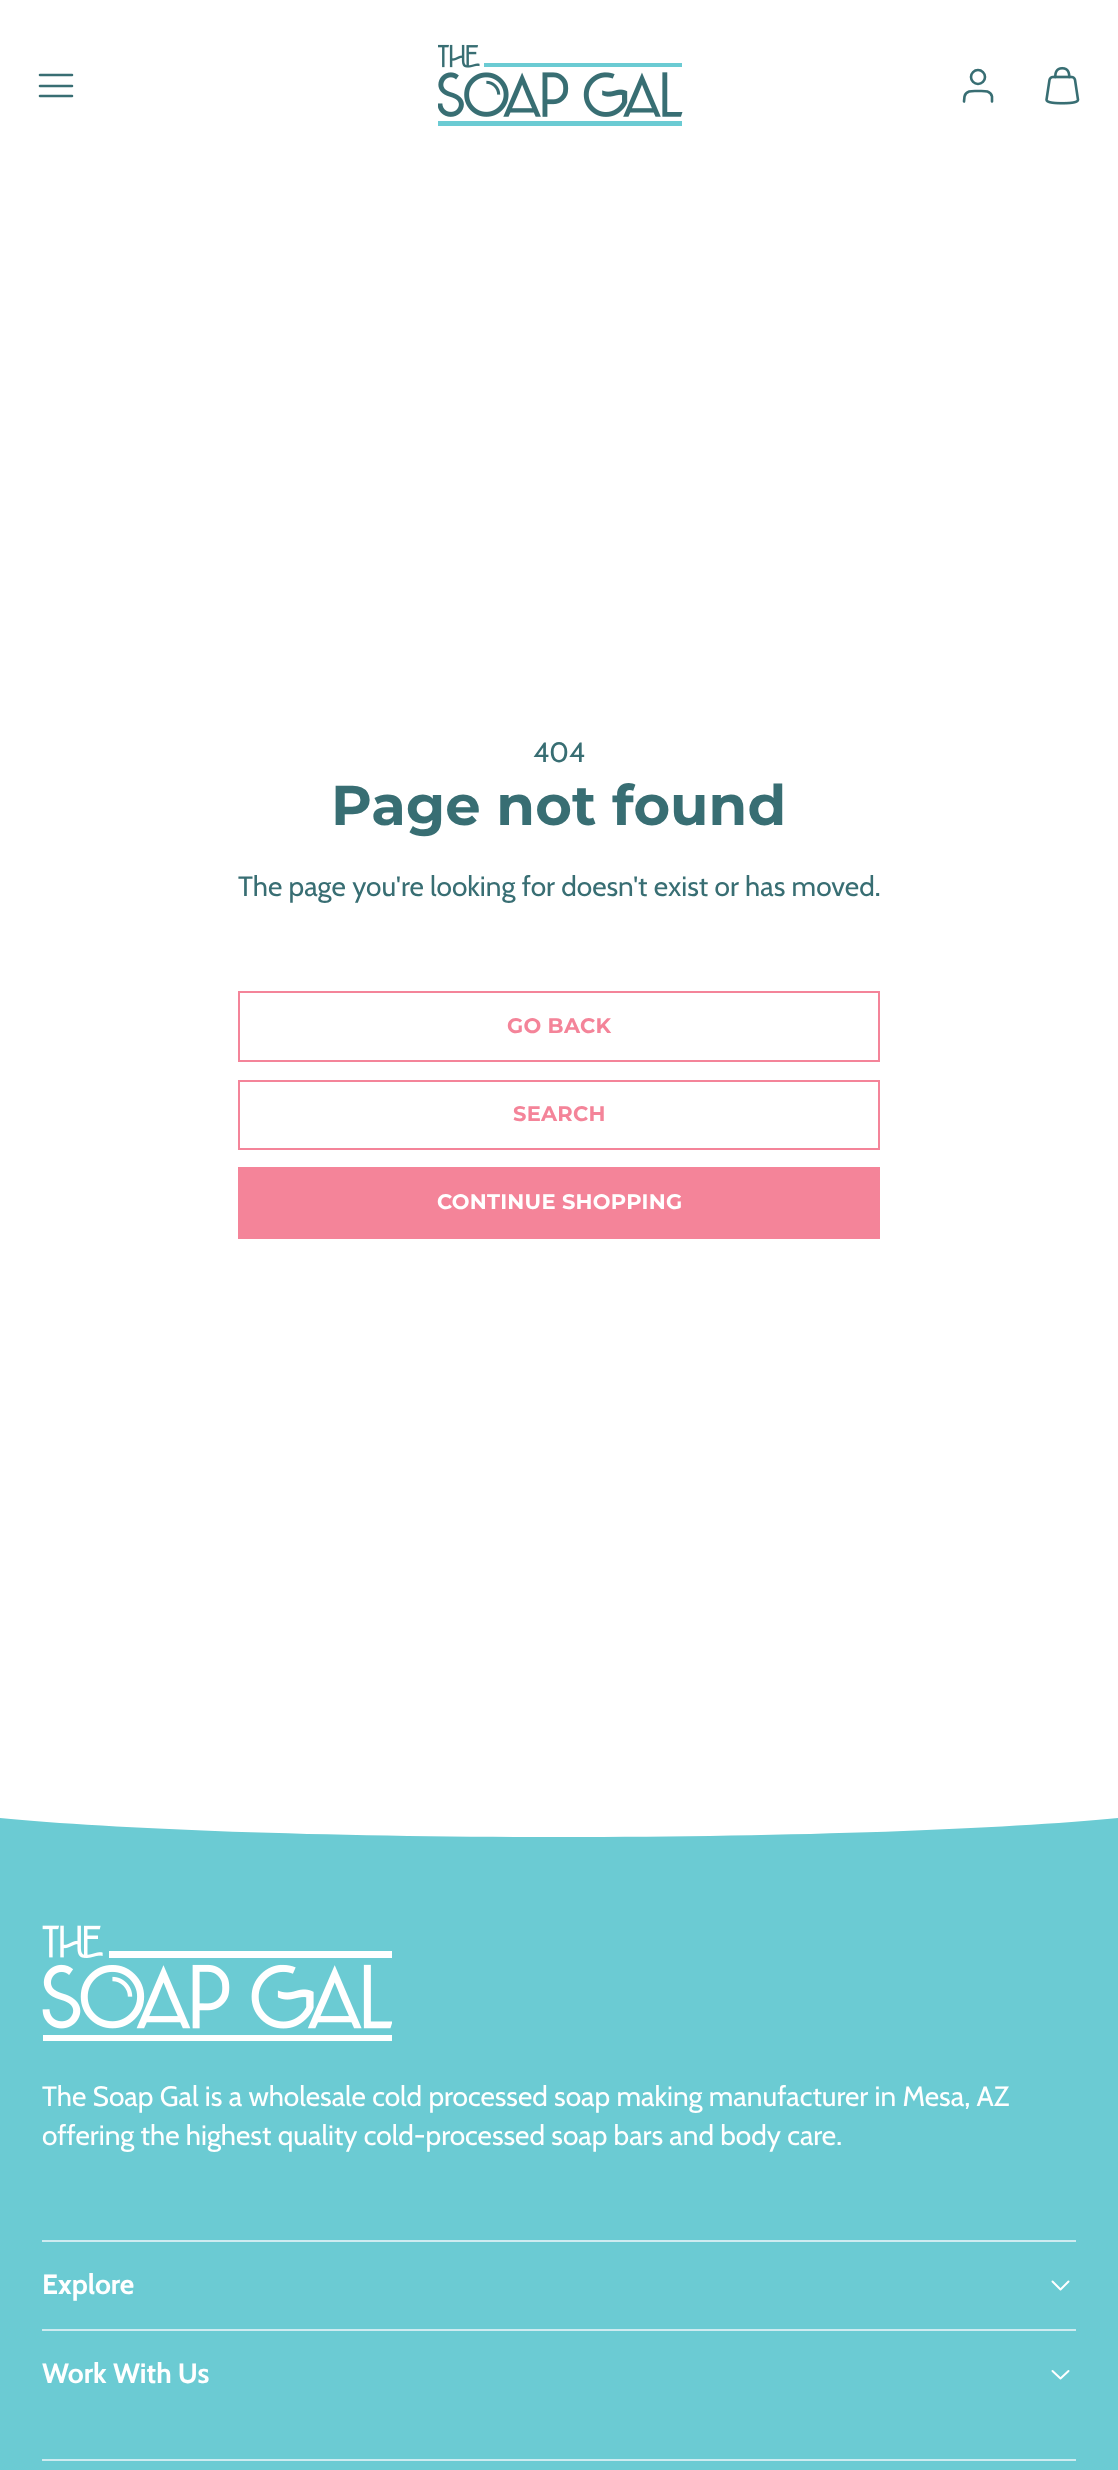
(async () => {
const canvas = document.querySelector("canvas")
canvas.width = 1118
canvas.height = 2470
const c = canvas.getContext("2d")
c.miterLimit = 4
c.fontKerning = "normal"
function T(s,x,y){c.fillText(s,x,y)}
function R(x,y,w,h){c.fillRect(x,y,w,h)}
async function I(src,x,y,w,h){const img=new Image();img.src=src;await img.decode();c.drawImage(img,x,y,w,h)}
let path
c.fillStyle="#fff"
R(0,0,1118,2470)
path = new Path2D("M40 86h32m-32-11h32m-32 21h32")
c.strokeStyle="#386e73"
c.lineWidth=2.6
c.lineCap="round"
c.lineJoin="round"
c.stroke(path)
await I("1.png",438,44,245,82)
path = new Path2D("M992 101.5v-5c-1.5-6.5-8.5-5.5-14-5.5c-5 0-12-1-13.5 5.5l-.5 5")
c.stroke(path)
c.beginPath()
c.arc(978,77,7,0,7)
c.stroke()
await I("2.png",1045,66,35,39)
c.font="28px Cabin"
c.fillStyle="#386e73"
T("404",533,762)
c.font="bold 56px Montserrat"
T("Page not found",331,825)
c.font="28px Cabin"
T("The page you're looking for doesn't exist or has moved.",238,896)
c.strokeStyle="#f48499"
c.lineWidth=2
c.lineJoin="miter"
c.strokeRect(239,992,640,69)
c.letterSpacing="0.25px"
c.font="bold 21px Montserrat"
c.fillStyle="#f48499"
T("GO BACK",507,1033)
c.strokeRect(239,1081,640,68)
T("SEARCH",513,1121)
R(238,1167,642,72)
c.fillStyle="#fff"
T("CONTINUE SHOPPING",437,1209)
c.fillStyle="#6bcbd3"
path = new Path2D("M0 1818v27h1118v-27c-112 11-321 19-559 19c-238 0-446-8-559-19")
c.fill(path)
R(0,1845,1118,625)
await I("3.png",42,1925,350,116)
c.letterSpacing="0px"
c.font="28px Cabin"
c.fillStyle="#fff"
T("The Soap Gal is a wholesale cold processed soap making manufacturer in Mesa, AZ",42,2106)
T("offering the highest quality cold-processed soap bars and body care.",42,2145)
c.fillStyle="#ceebf0"
R(42,2240,1034,2)
c.font="bold 28px Cabin"
c.fillStyle="#fff"
T("Explore",42,2294)
path = new Path2D("M1052.5 2281.5l8 8l8-8")
c.strokeStyle="#fff"
c.lineJoin="round"
c.stroke(path)
c.fillStyle="#ceebf0"
R(42,2329,1034,2)
c.fillStyle="#fff"
T("Work With Us",42,2383)
path = new Path2D("M1052.5 2371l8 7.5l8-7.5")
c.stroke(path)
c.fillStyle="#ceebf0"
R(42,2459,1034,2)
})()
